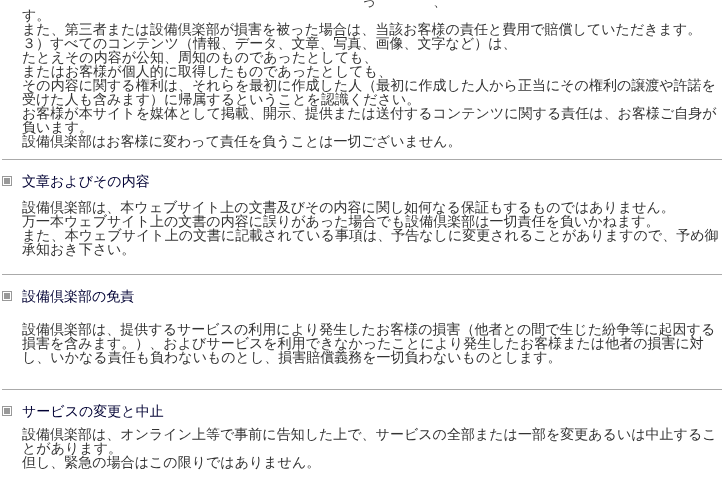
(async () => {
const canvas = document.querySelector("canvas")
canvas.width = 724
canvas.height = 480
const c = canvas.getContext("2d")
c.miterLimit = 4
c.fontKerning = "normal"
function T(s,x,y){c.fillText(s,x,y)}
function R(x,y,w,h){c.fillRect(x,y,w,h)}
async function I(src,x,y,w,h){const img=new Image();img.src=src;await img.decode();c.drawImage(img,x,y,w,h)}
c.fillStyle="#fff"
R(0,0,724,480)
c.font="500 14px WenQuanYi Zen Hei"
c.fillStyle="#333"
T("っ",362,6)
T("、",433,6)
T("す。",22,20)
T("また、第三者または設備倶楽部が損害を被った場合は、当該お客様の責任と費用で賠償していただきます。",22,34)
T("３）すべてのコンテンツ（情報、データ、文章、写真、画像、文字など）は、",22,48)
T("たとえその内容が公知、周知のものであったとしても、",22,62)
T("またはお客様が個人的に取得したものであったとしても、",22,76)
T("その内容に関する権利は、それらを最初に作成した人（最初に作成した人から正当にその権利の譲渡や許諾を",22,90)
T("受けた人も含みます）に帰属するということを認識ください。",22,104)
T("お客様が本サイトを媒体として掲載、開示、提供または送付するコンテンツに関する責任は、お客様ご自身が",22,118)
T("負います。",22,132)
T("設備倶楽部はお客様に変わって責任を負うことは一切ございません。",22,146)
c.fillStyle="#aaa"
R(2,159,720,1)
await I("1.png",2,176,10,10)
c.fillStyle="#003"
T("文章およびその内容",22,186)
c.fillStyle="#333"
T("設備倶楽部は、本ウェブサイト上の文書及びその内容に関し如何なる保証もするものではありません。",22,212)
T("万一本ウェブサイト上の文書の内容に誤りがあった場合でも設備倶楽部は一切責任を負いかねます。",22,226)
T("また、本ウェブサイト上の文書に記載されている事項は、予告なしに変更されることがありますので、予め御",22,240)
T("承知おき下さい。",22,254)
c.fillStyle="#aaa"
R(2,274,720,1)
await I("1.png",2,291,10,10)
c.fillStyle="#003"
T("設備倶楽部の免責",22,301)
c.fillStyle="#333"
T("設備倶楽部は、提供するサービスの利用により発生したお客様の損害（他者との間で生じた紛争等に起因する",22,334)
T("損害を含みます。）、およびサービスを利用できなかったことにより発生したお客様または他者の損害に対",22,348)
T("し、いかなる責任も負わないものとし、損害賠償義務を一切負わないものとします。",22,362)
c.fillStyle="#aaa"
R(2,389,720,1)
await I("1.png",2,406,10,10)
c.fillStyle="#003"
T("サービスの変更と中止",22,416)
c.fillStyle="#333"
T("設備倶楽部は、オンライン上等で事前に告知した上で、サービスの全部または一部を変更あるいは中止するこ",22,439)
T("とがあります。",22,453)
T("但し、緊急の場合はこの限りではありません。",22,467)
})()
